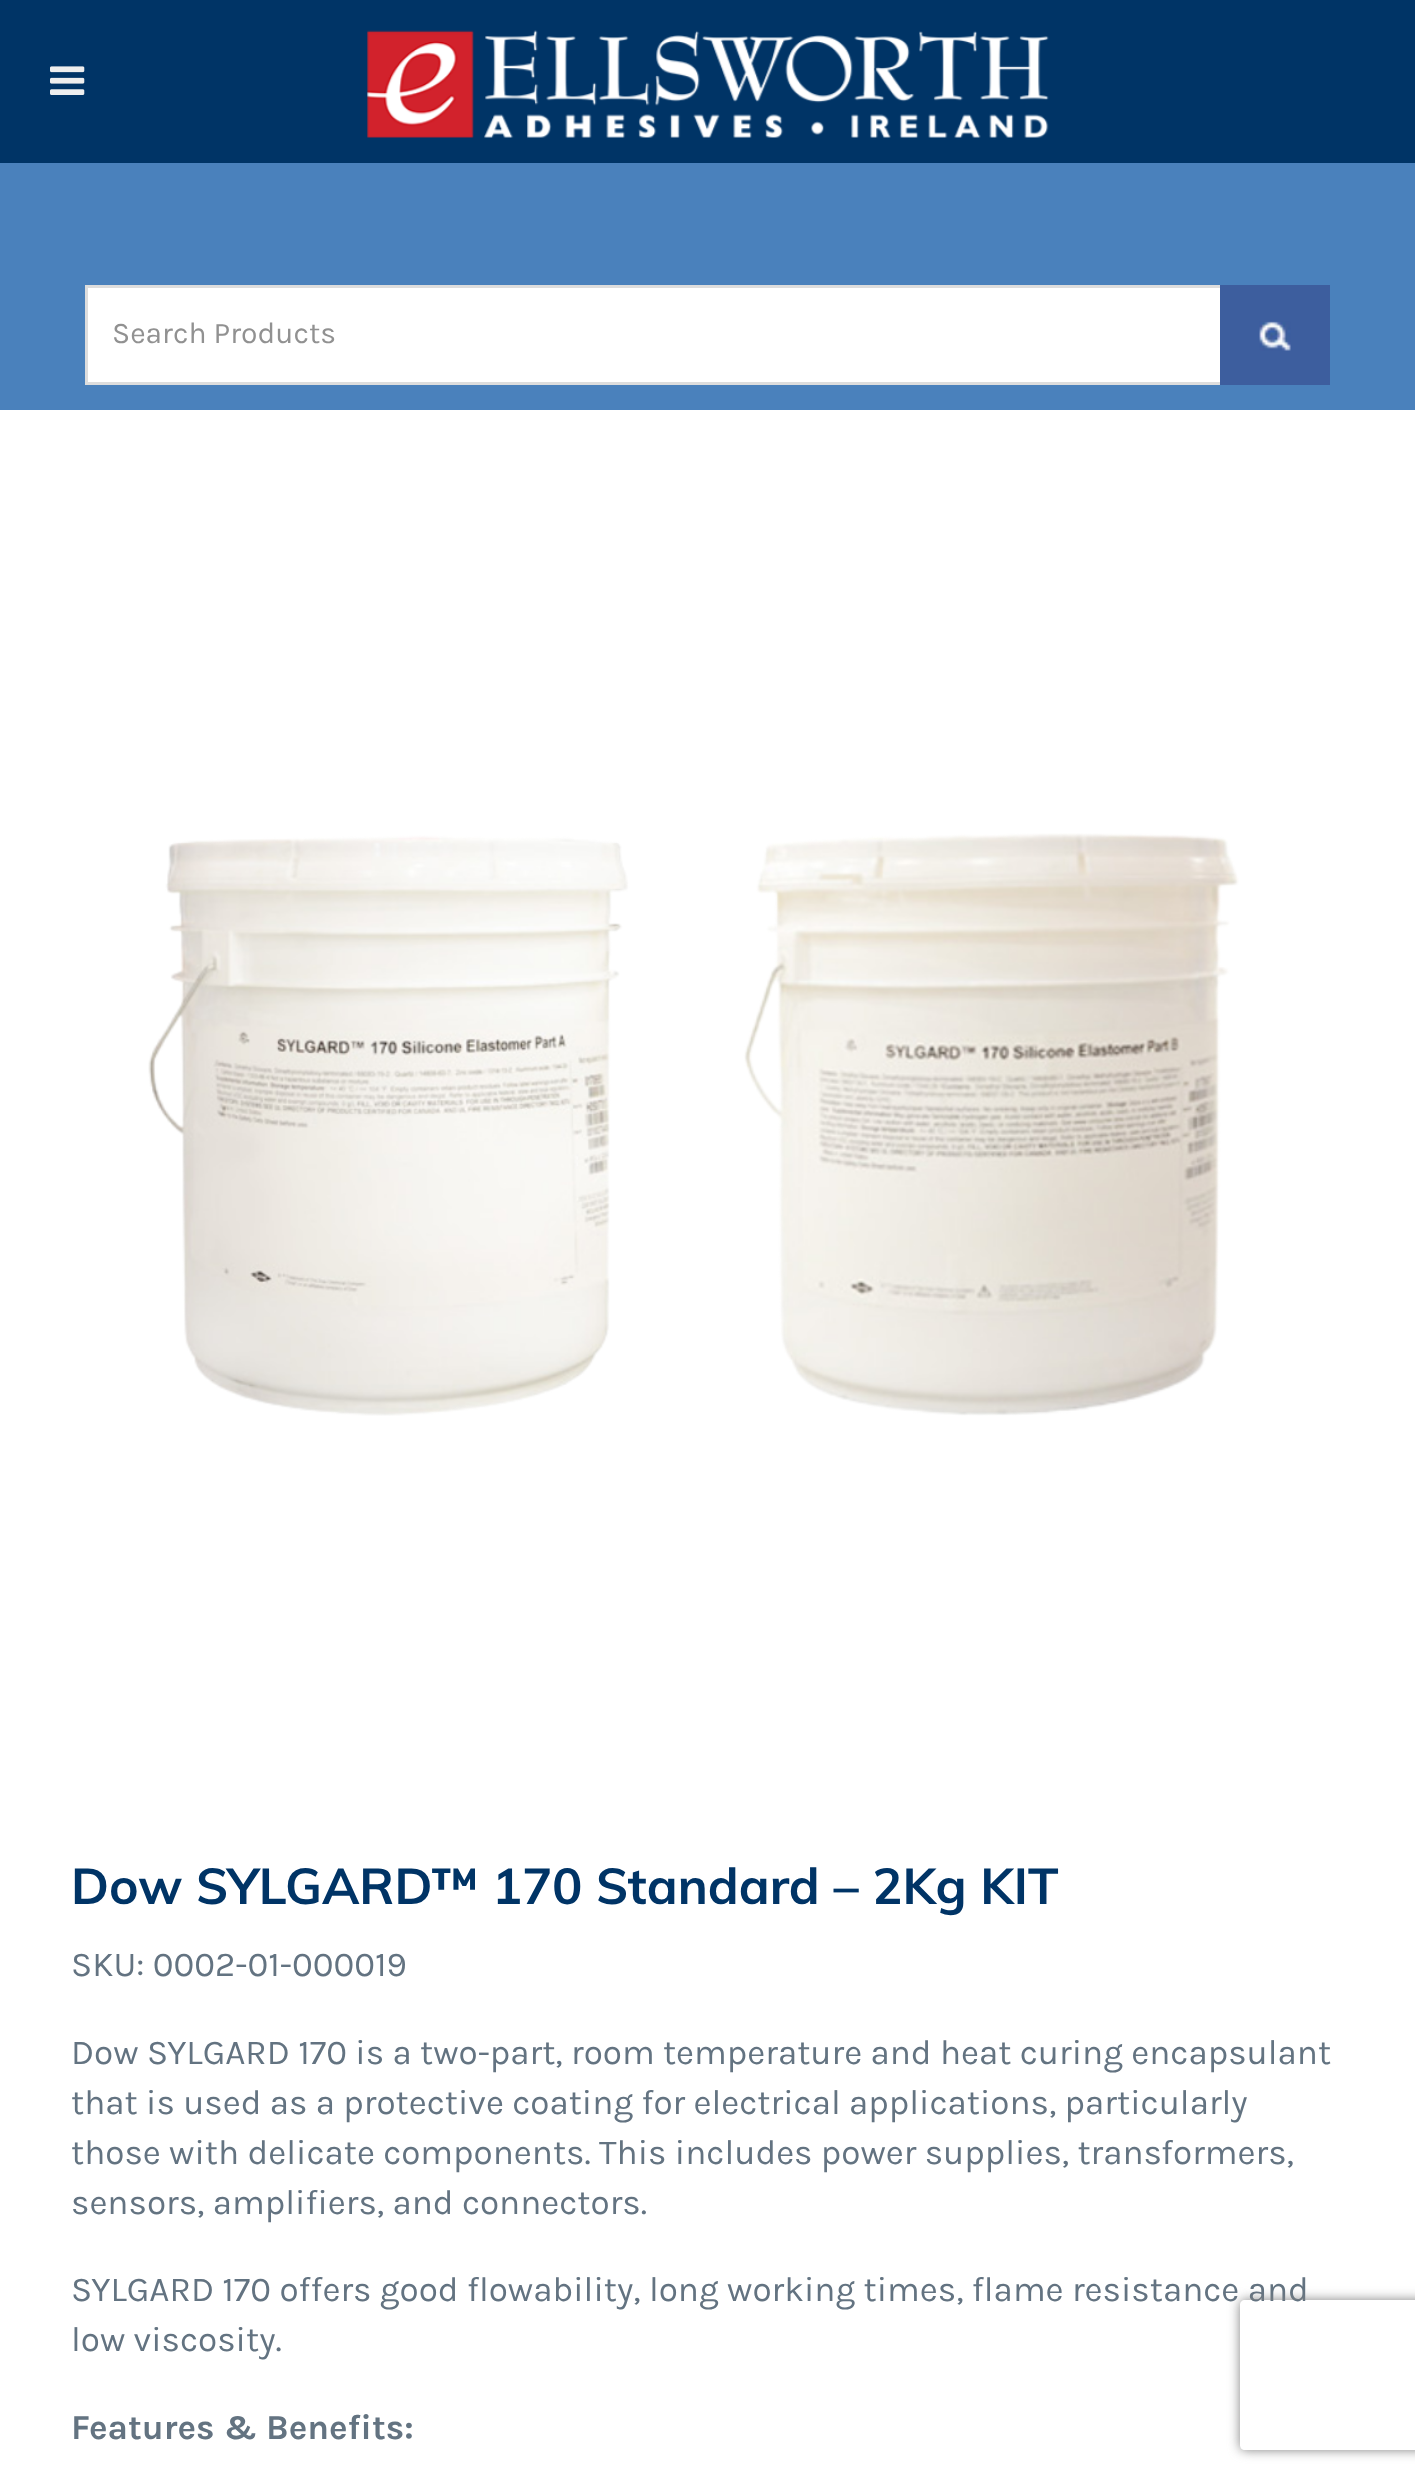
(async () => {
const canvas = document.querySelector("canvas")
canvas.width = 1415
canvas.height = 2484
const c = canvas.getContext("2d")
c.miterLimit = 4
c.fontKerning = "normal"
function T(s,x,y){c.fillText(s,x,y)}
function R(x,y,w,h){c.fillRect(x,y,w,h)}
async function I(src,x,y,w,h){const img=new Image();img.src=src;await img.decode();c.drawImage(img,x,y,w,h)}
let path
c.fillStyle="#fff"
R(0,0,1415,2484)
c.fillStyle="#003466"
R(0,0,1415,163)
await I("1.png",50,66,35,29)
await I("2.png",367,30,682,108)
c.fillStyle="#4a81bc"
R(0,163,1415,247)
c.fillStyle="#fff"
R(88,288,1132,94)
c.strokeStyle="#ddd"
c.lineWidth=3
c.strokeRect(86.5,286.5,1242,97)
c.font="30px Karla"
c.fillStyle="#919191"
T("Search Products",112,343)
c.fillStyle="#3d5e9e"
R(1220,285,110,100)
await I("3.png",1259,321,32,30)
await I("4.png",148,833,1091,583)
c.font="bold 50px Muli"
c.fillStyle="#003466"
T("Dow SYLGARD™ 170 Standard – 2Kg KIT",71,1904)
c.font="35px Karla"
c.fillStyle="#637381"
T("SKU: 0002-01-000019",71,1976)
T("Dow SYLGARD 170 is a two-part, room temperature and heat curing encapsulant",71,2064)
T("that is used as a protective coating for electrical applications, particularly",71,2114)
T("those with delicate components. This includes power supplies, transformers,",71,2164)
T("sensors, amplifiers, and connectors.",71,2214)
T("SYLGARD 170 offers good flowability, long working times, flame resistance and",71,2301)
T("low viscosity.",71,2351)
c.font="bold 35px Karla"
T("Features & Benefits:",71,2439)
c.save()
path = new Path2D("M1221 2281h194v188h-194zm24 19h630c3 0 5 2 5 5v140c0 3-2 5-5 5h-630c-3 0-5-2-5-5v-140c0-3 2-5 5-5z")
c.clip(path,"evenodd")
c.fillStyle="#808080"
c.filter="blur(6px)"
c.beginPath()
c.roundRect(1240,2300,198,150,5)
c.fill()
c.filter="none"
c.restore()
})()
